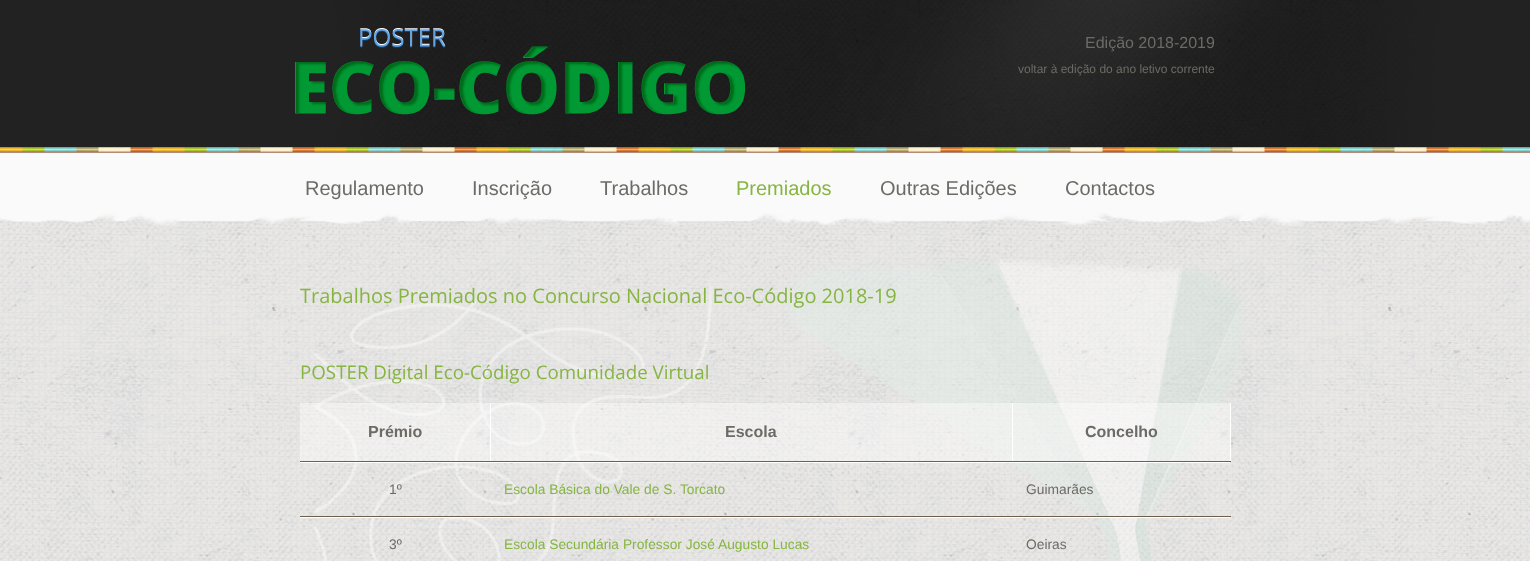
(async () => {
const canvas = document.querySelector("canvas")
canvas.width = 1530
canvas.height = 561
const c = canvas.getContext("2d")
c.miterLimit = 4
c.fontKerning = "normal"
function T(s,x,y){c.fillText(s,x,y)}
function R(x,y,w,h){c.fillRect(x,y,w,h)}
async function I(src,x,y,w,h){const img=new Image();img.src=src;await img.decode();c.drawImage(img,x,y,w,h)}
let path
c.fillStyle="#fff"
R(0,0,1530,561)
await I("1.png",0,152,1530,409)
await I("2.png",0,0,1530,226)
await I("3.png",295,28,450,87)
c.font="16px Liberation Sans"
c.fillStyle="#6c6b66"
T("Edição 2018-2019",1085,48)
c.font="12px Liberation Sans"
T("voltar à edição do ano letivo corrente",1018,73)
c.font="20px Liberation Sans"
T("Regulamento",305,195)
T("Inscrição",472,195)
T("Trabalhos",600,195)
c.fillStyle="#87b542"
T("Premiados",736,195)
c.fillStyle="#6c6b66"
T("Outras Edições",880,195)
T("Contactos",1065,195)
await I("4.png",313,259,931,302)
c.font="20px Open Sans"
c.fillStyle="#87b542"
T("Trabalhos Premiados no Concurso Nacional Eco-Código 2018-19",300,303)
c.font="18.75px Open Sans"
T("POSTER Digital Eco-Código Comunidade Virtual",300,379)
c.save()
path = new Path2D("M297 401h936v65h-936zm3 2h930v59h-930z")
c.clip(path,"evenodd")
c.fillStyle="#fff"
c.filter="blur(0.5px)"
c.beginPath()
c.rect(300,404,930,59)
c.fill()
c.filter="none"
c.restore()
c.save()
path = new Path2D("M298 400h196v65h-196zm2 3h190v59h-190z")
c.clip(path,"evenodd")
c.fillStyle="#fff"
c.filter="blur(0.5px)"
c.beginPath()
c.rect(301,403,190,59)
c.fill()
c.filter="none"
c.restore()
c.fillStyle="#fefefe66"
R(300,403,190,58)
c.save()
path = new Path2D("M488 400h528v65h-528zm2 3h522v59h-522z")
c.clip(path,"evenodd")
c.fillStyle="#fff"
c.filter="blur(0.5px)"
c.beginPath()
c.rect(491,403,522,59)
c.fill()
c.filter="none"
c.restore()
R(491,403,521,58)
c.save()
path = new Path2D("M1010 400h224v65h-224zm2 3h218v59h-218z")
c.clip(path,"evenodd")
c.fillStyle="#fff"
c.filter="blur(0.5px)"
c.beginPath()
c.rect(1013,403,218,59)
c.fill()
c.filter="none"
c.restore()
R(1013,403,217,58)
c.save()
path = new Path2D("M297 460h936v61h-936zm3 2h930v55h-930z")
c.clip(path,"evenodd")
c.fillStyle="#fff"
c.filter="blur(0.5px)"
c.beginPath()
c.rect(300,463,930,55)
c.fill()
c.filter="none"
c.restore()
c.fillStyle="#6e5e4c"
R(300,461,931,1)
c.font="bold 16px Liberation Sans"
c.fillStyle="#6c6b66"
T("Prémio",368,437)
T("Escola",725,437)
T("Concelho",1085,437)
c.fillStyle="#6e5e4c"
R(300,516,931,1)
c.font="13.8px Liberation Sans"
c.fillStyle="#6c6b66"
T("1º",389,494)
c.fillStyle="#87b542"
T("Escola Básica do Vale de S. Torcato",504,494)
c.fillStyle="#6c6b66"
T("Guimarães",1026,494)
T("3º",389,549)
c.fillStyle="#87b542"
T("Escola Secundária Professor José Augusto Lucas",504,549)
c.fillStyle="#6c6b66"
T("Oeiras",1026,549)
})()
